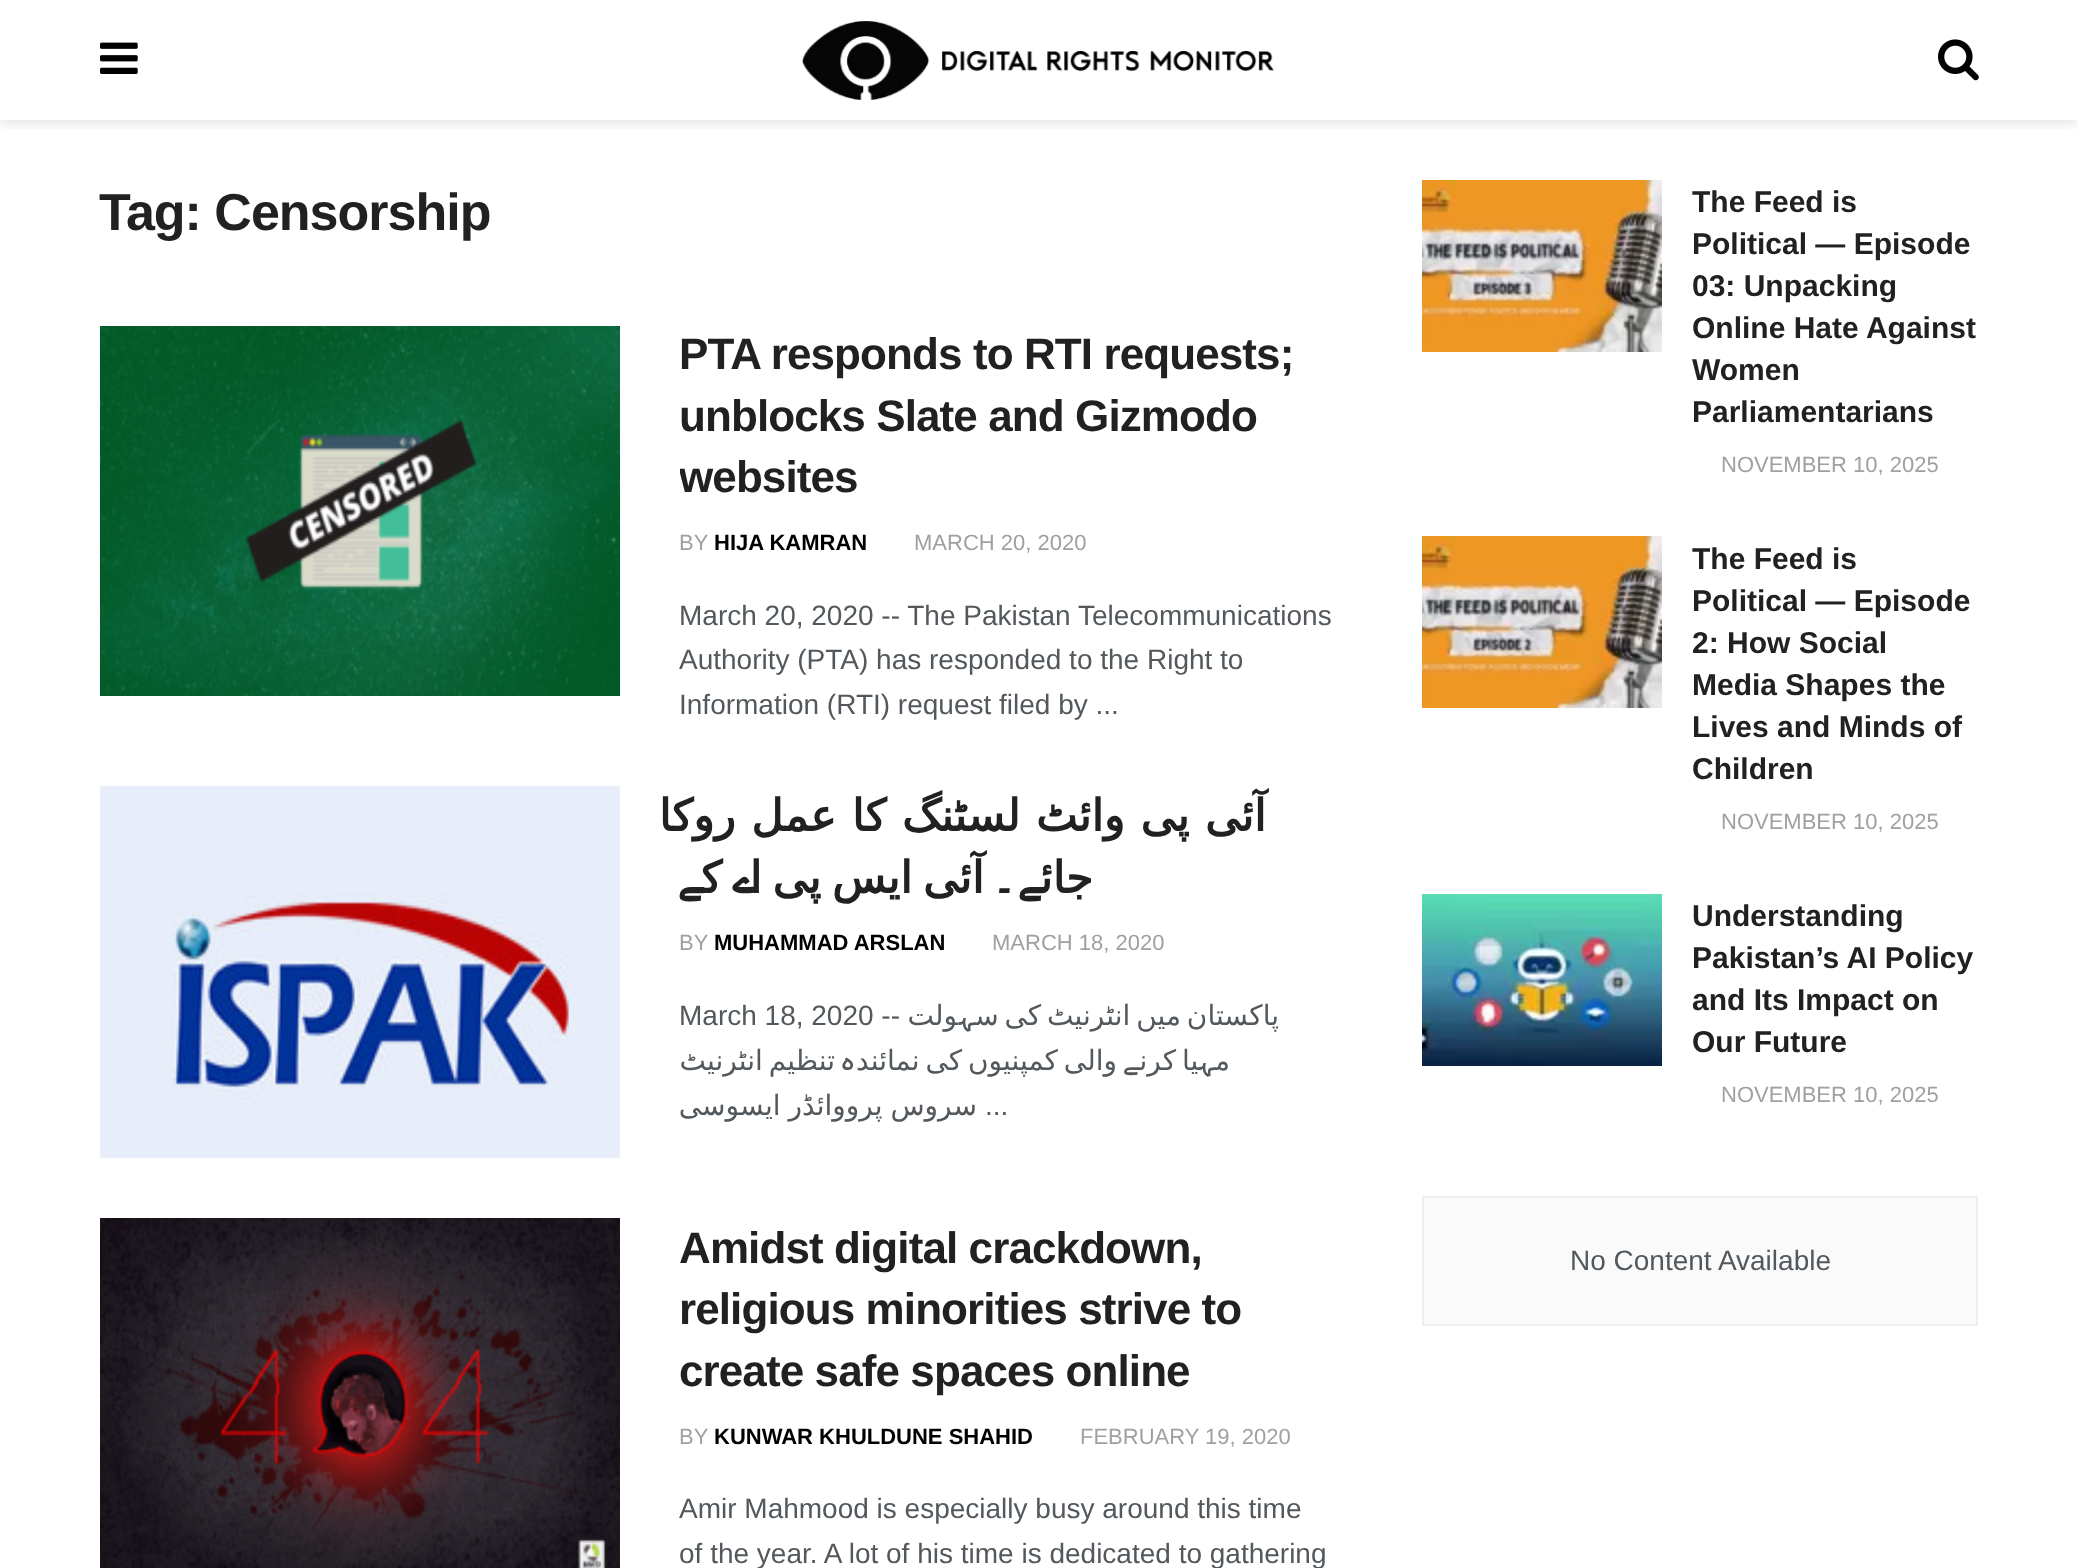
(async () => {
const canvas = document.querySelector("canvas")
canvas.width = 2078
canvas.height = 1568
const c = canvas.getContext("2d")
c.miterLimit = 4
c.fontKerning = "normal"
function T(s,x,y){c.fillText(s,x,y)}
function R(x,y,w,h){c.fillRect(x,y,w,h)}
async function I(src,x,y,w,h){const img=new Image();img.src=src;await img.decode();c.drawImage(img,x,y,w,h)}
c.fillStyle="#fff"
R(0,0,2078,1568)
c.save()
c.beginPath()
c.rect(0,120,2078,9)
c.clip()
c.fillStyle="#0000001a"
c.filter="blur(6px)"
c.beginPath()
c.rect(0,4,2078,120)
c.fill()
c.filter="none"
c.restore()
await I("1.png",100,42,38,32)
await I("2.png",802,21,472,79)
await I("3.png",1938,39,41,42)
c.letterSpacing="-1px"
c.font="bold 52px Liberation Sans"
c.fillStyle="#212121"
T("Tag: Censorship",99,230)
await I("4.png",100,326,520,370)
c.letterSpacing="-0.9px"
c.font="bold 44px Liberation Sans"
T("PTA responds to RTI requests;",679,369)
T("unblocks Slate and Gizmodo",679,431)
c.save()
c.beginPath()
c.rect(680,326,652,400)
c.clip()
T("websites",679,492)
c.restore()
c.letterSpacing="0px"
c.font="22px Liberation Sans"
c.fillStyle="#a0a0a0"
T("BY",679,550)
c.font="bold 22px Liberation Sans"
c.fillStyle="#000"
T("HIJA KAMRAN",714,550)
c.font="22px Liberation Sans"
c.fillStyle="#a0a0a0"
T("MARCH 20, 2020",914,550)
c.font="28px Liberation Sans"
c.fillStyle="#53585c"
T("March 20, 2020 -- The Pakistan Telecommunications",679,625)
T("Authority (PTA) has responded to the Right to",679,669)
T("Information (RTI) request filed by ...",679,714)
await I("5.png",100,786,520,372)
c.letterSpacing="-0.9px"
c.wordSpacing="2.5px"
c.direction="rtl"
c.font="bold 44px DejaVu Sans"
c.fillStyle="#212121"
T("آئی پی وائٹ لسٹنگ کا عمل روکا",1266,831)
c.wordSpacing="0px"
c.font="bold 44px Cascadia Code"
T("‍ے",703,893)
c.font="bold 44px DejaVu Sans"
T("ک‍",722,893)
c.font="bold 44px Cascadia Code"
T("ے",758,893)
c.wordSpacing="-2.5px"
c.font="bold 44px DejaVu Sans"
T("آئی ایس پی ا",984,893)
c.wordSpacing="0px"
c.font="bold 44px Cascadia Code"
T("‍ے۔",1043,893)
c.font="bold 44px DejaVu Sans"
T("جائ‍",1093,893)
c.letterSpacing="0px"
c.direction="ltr"
c.font="22px Liberation Sans"
c.fillStyle="#a0a0a0"
T("BY",679,950)
c.font="bold 22px Liberation Sans"
c.fillStyle="#000"
T("MUHAMMAD ARSLAN",714,950)
c.font="22px Liberation Sans"
c.fillStyle="#a0a0a0"
T("MARCH 18, 2020",992,950)
c.font="28px Liberation Sans"
c.fillStyle="#53585c"
T("March 18, 2020 --",679,1025)
c.direction="rtl"
c.font="28px DejaVu Sans"
T("‍ولت",958,1025)
c.font="28px Cascadia Code"
T("‍ہ‍",975,1025)
c.wordSpacing="-3px"
c.font="28px DejaVu Sans"
T("پاکستان میں انٹرنیٹ کی س‍",1279,1025)
T("تنظیم انٹرنیٹ",835,1070)
c.wordSpacing="0px"
c.font="28px Cascadia Code"
T("ہ",856,1070)
c.wordSpacing="-3px"
c.font="28px DejaVu Sans"
T("والی کمپنیوں کی نمائند",1117,1070)
c.wordSpacing="0px"
c.font="28px Cascadia Code"
T("‍ے",1139,1070)
c.wordSpacing="-3px"
c.font="28px DejaVu Sans"
T("‍یا کرن‍",1199,1070)
c.wordSpacing="0px"
c.font="28px Cascadia Code"
T("‍ہ‍",1215,1070)
c.font="28px DejaVu Sans"
T("م‍",1230,1070)
c.wordSpacing="-1px"
T("سروس پرووائڈر ایسوسی",977,1115)
c.wordSpacing="0px"
c.direction="ltr"
c.font="28px Liberation Sans"
T("...",985,1115)
await I("6.png",100,1218,520,350)
c.letterSpacing="-0.9px"
c.font="bold 44px Liberation Sans"
c.fillStyle="#212121"
T("Amidst digital crackdown,",679,1263)
T("religious minorities strive to",679,1324)
T("create safe spaces online",679,1386)
c.letterSpacing="0px"
c.font="22px Liberation Sans"
c.fillStyle="#a0a0a0"
T("BY",679,1444)
c.font="bold 22px Liberation Sans"
c.fillStyle="#000"
T("KUNWAR KHULDUNE SHAHID",714,1444)
c.font="22px Liberation Sans"
c.fillStyle="#a0a0a0"
T("FEBRUARY 19, 2020",1080,1444)
c.font="28px Liberation Sans"
c.fillStyle="#53585c"
T("Amir Mahmood is especially busy around this time",679,1518)
T("of the year. A lot of his time is dedicated to gathering",679,1563)
await I("7.png",1422,180,240,172)
c.font="bold 30px Liberation Sans"
c.fillStyle="#212121"
T("The Feed is",1692,212)
T("Political — Episode",1692,254)
T("03: Unpacking",1692,296)
T("Online Hate Against",1692,338)
T("Women",1692,380)
T("Parliamentarians",1692,422)
c.font="22px Liberation Sans"
c.fillStyle="#a0a0a0"
T("NOVEMBER 10, 2025",1721,472)
await I("8.png",1422,536,240,172)
c.font="bold 30px Liberation Sans"
c.fillStyle="#212121"
T("The Feed is",1692,569)
T("Political — Episode",1692,611)
T("2: How Social",1692,653)
T("Media Shapes the",1692,695)
T("Lives and Minds of",1692,737)
T("Children",1692,779)
c.font="22px Liberation Sans"
c.fillStyle="#a0a0a0"
T("NOVEMBER 10, 2025",1721,829)
await I("9.png",1422,894,240,172)
c.font="bold 30px Liberation Sans"
c.fillStyle="#212121"
T("Understanding",1692,926)
T("Pakistan’s AI Policy",1692,968)
T("and Its Impact on",1692,1010)
T("Our Future",1692,1052)
c.font="22px Liberation Sans"
c.fillStyle="#a0a0a0"
T("NOVEMBER 10, 2025",1721,1102)
c.fillStyle="#fafafa"
c.beginPath()
c.rect(1423,1197,554,128)
c.fill()
c.strokeStyle="#eee"
c.lineWidth=2
c.stroke()
c.font="28px Liberation Sans"
c.fillStyle="#53585c"
T("No Content Available",1570,1270)
})()
